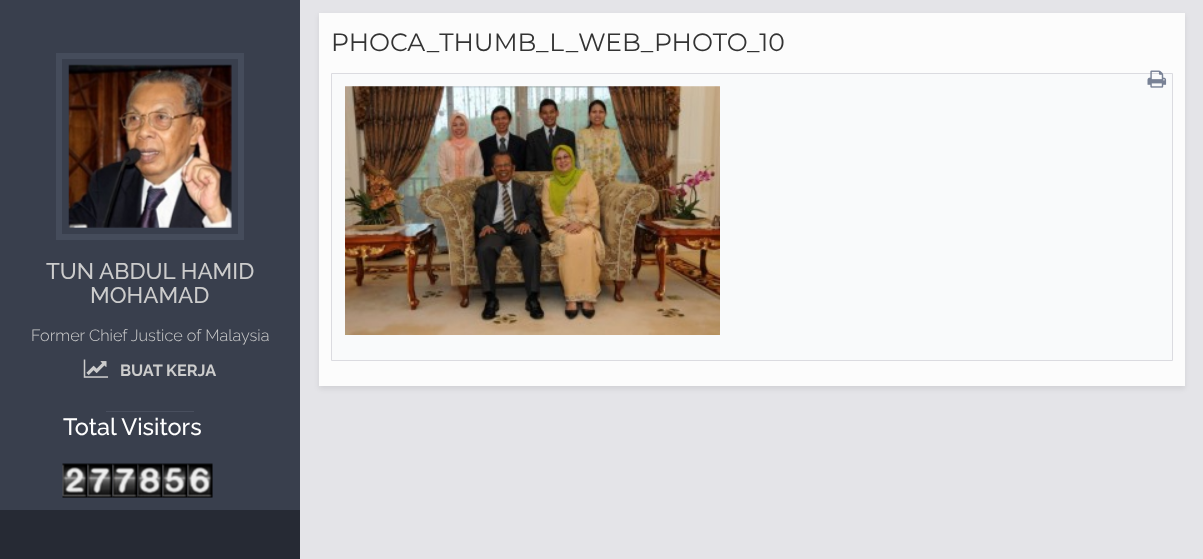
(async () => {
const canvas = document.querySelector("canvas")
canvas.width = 1203
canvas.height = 559
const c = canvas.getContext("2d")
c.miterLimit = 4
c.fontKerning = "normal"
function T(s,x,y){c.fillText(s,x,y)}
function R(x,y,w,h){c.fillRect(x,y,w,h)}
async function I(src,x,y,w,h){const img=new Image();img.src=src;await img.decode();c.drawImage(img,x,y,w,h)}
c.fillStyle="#e4e4e8"
R(0,0,1203,559)
c.fillStyle="#00000014"
c.filter="blur(2.5px)"
c.beginPath()
c.rect(319,15,866,374)
c.fill()
c.filter="none"
c.fillStyle="#fcfcfc"
R(319,13,866,373)
c.font="25px Montserrat"
c.fillStyle="#333"
T("PHOCA_THUMB_L_WEB_PHOTO_10",331,51)
c.fillStyle="#f9fafb"
c.beginPath()
c.rect(331.5,73.5,841,287)
c.fill()
c.strokeStyle="#dbdbe0"
c.stroke()
await I("1.png",1147,70,20,18)
await I("2.png",345,86,375,249)
c.fillStyle="#393f4d"
R(0,0,300,510)
c.strokeStyle="#454c5b"
c.lineWidth=6
c.strokeRect(59,56,182,181)
await I("3.png",68,64,164,164)
c.font="500 22.5px Raleway"
c.fillStyle="#ccc"
T("TUN ABDUL HAMID",46,279)
T("MOHAMAD",90,303)
c.font="300 16.25px Raleway"
T("Former Chief Justice of Malaysia",31,341)
await I("4.png",83,359,26,19)
c.font="bold 16.25px Raleway"
T("BUAT KERJA",120,376)
c.fillStyle="#494f5e"
R(106,411,88,1)
c.fillStyle="#262a34"
R(0,510,300,49)
c.font="500 23.5px Raleway"
c.fillStyle="#fff"
T("Total Visitors",63,435)
await I("5.png",62,463,26,35)
await I("6.png",87,463,26,35)
await I("7.png",112,463,26,35)
await I("8.png",137,463,26,35)
await I("9.png",162,463,26,35)
await I("10.png",187,463,26,35)
})()
